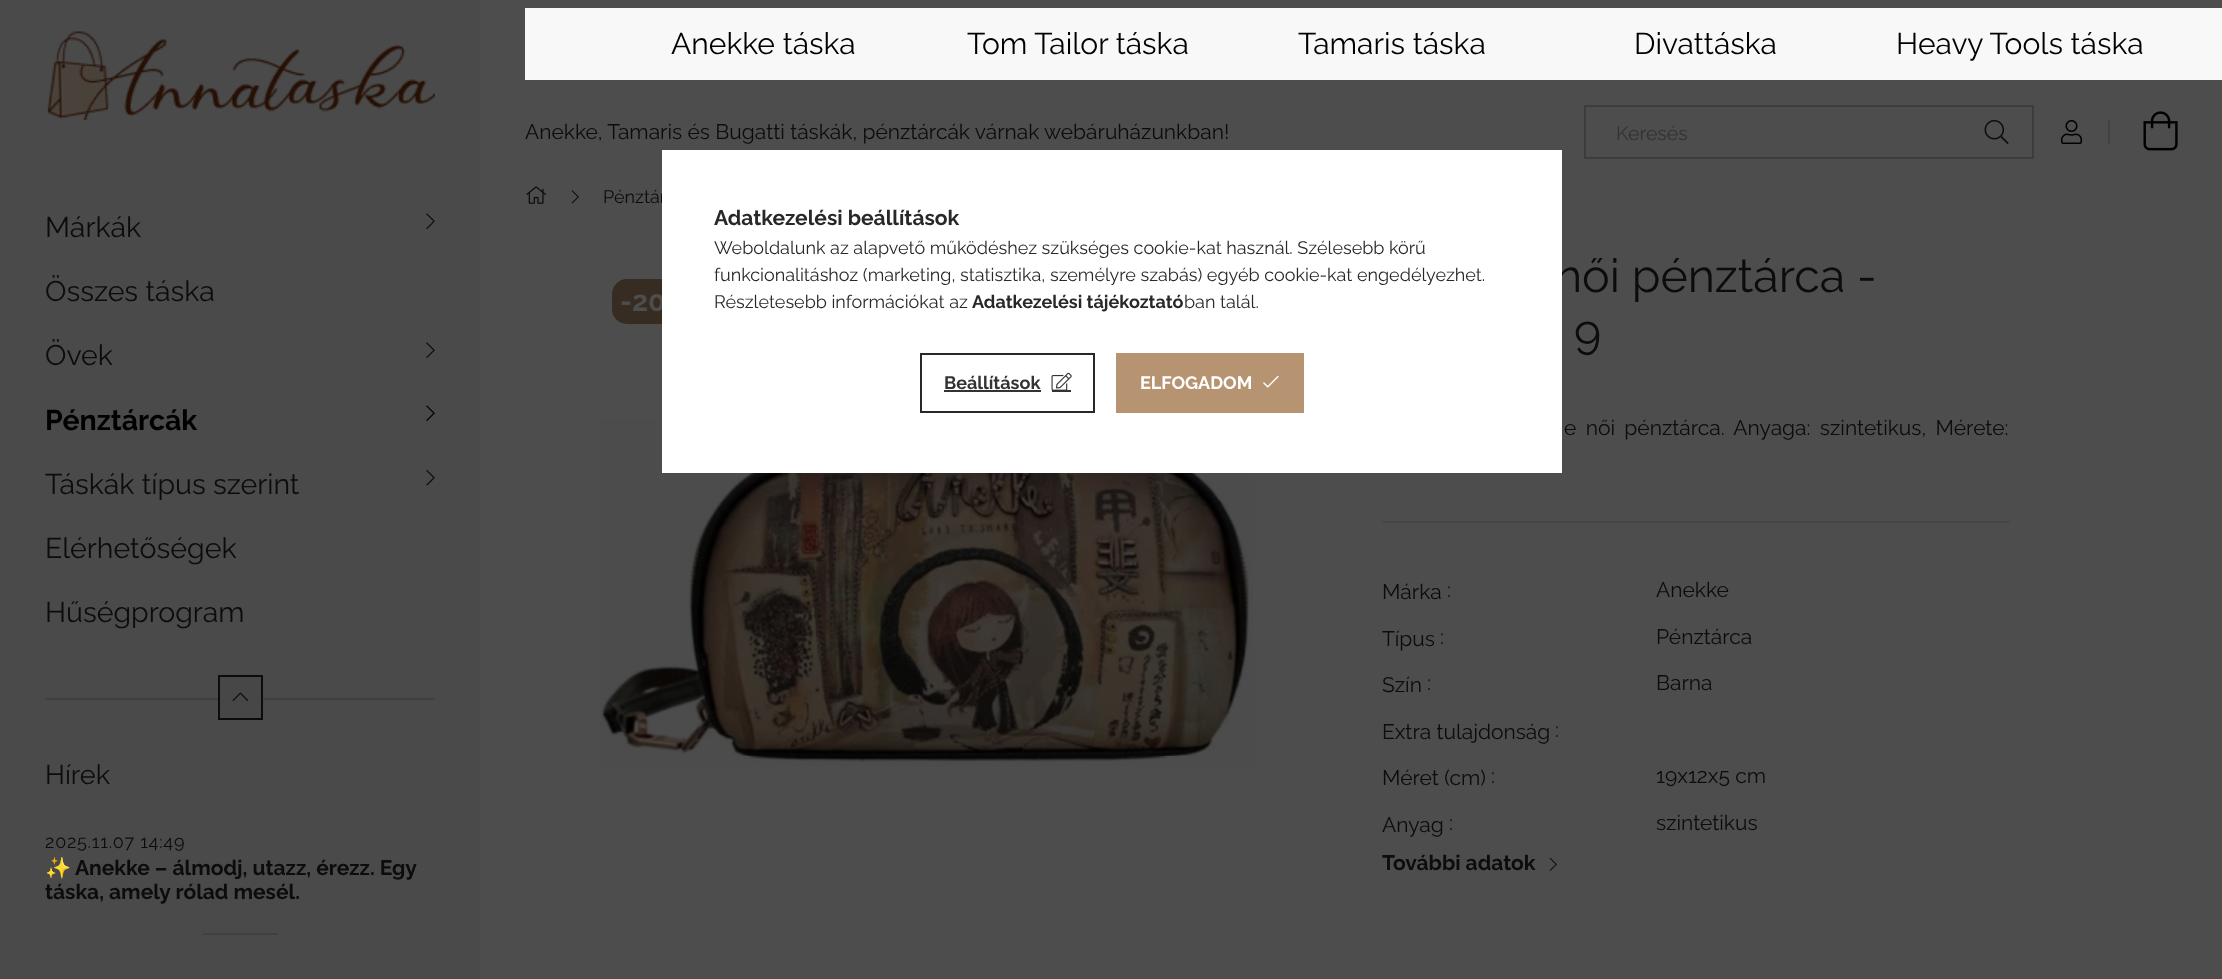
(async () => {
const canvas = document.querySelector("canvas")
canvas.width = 2222
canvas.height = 979
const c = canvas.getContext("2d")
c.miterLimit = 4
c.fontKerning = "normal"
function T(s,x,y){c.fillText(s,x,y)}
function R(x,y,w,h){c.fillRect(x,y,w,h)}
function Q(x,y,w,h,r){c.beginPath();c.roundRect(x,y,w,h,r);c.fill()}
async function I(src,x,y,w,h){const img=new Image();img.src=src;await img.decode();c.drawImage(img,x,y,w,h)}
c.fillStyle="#4d4d4d"
R(0,0,2222,979)
c.fillStyle="#4a4a4a"
R(0,0,480,979)
await I("1.png",47,31,388,89)
c.font="28.5px Raleway"
c.fillStyle="#0c0c0c"
T("Márkák",45,237)
await I("2.png",426,213,9,17)
T("Összes táska",45,301)
T("Övek",45,365)
await I("2.png",426,342,9,17)
c.font="bold 28.5px Raleway"
c.fillStyle="#000"
T("Pénztárcák",45,430)
await I("3.png",426,405,9,17)
c.font="28.5px Raleway"
c.fillStyle="#0c0c0c"
T("Táskák típus szerint",45,494)
await I("4.png",426,469,9,17)
T("Elérhetőségek",45,558)
T("Hűségprogram",45,622)
c.fillStyle="#404040"
R(45,698,390,2)
c.fillStyle="#474747"
c.beginPath()
c.rect(219,676,43,43)
c.fill()
c.strokeStyle="#0c0c0c"
c.lineWidth=2
c.stroke()
await I("5.png",232,692,17,9)
c.font="27px Raleway"
c.fillStyle="#0c0c0c"
T("Hírek",45,784)
c.letterSpacing="0.75px"
c.font="18px Raleway"
T("2025.11.07 14:49",45,848)
c.letterSpacing="0px"
c.font="bold 21px Noto Color Emoji"
T("✨",45,875)
c.font="bold 21px Raleway"
T("Anekke – álmodj, utazz, érezz. Egy",75,875)
T("táska, amely rólad mesél.",45,899)
c.fillStyle="#404040"
R(203,933,75,2)
c.fillStyle="#f8f8f8"
R(525,8,1697,72)
c.font="30px Raleway"
c.fillStyle="#000"
T("Anekke táska",671,54)
T("Tom Tailor táska",967,54)
T("Tamaris táska",1298,54)
T("Divattáska",1634,54)
T("Heavy Tools táska",1896,54)
c.font="21px Raleway"
c.fillStyle="#0c0c0c"
T("Anekke, Tamaris és Bugatti táskák, pénztárcák várnak webáruházunkban!",525,139)
c.strokeStyle="#3d3d3d"
c.strokeRect(1585,106,448,52)
c.font="19.5px Raleway"
c.fillStyle="#333"
T("Keresés",1616,140)
await I("6.png",1984,120,25,24)
await I("7.png",2061,120,21,24)
c.fillStyle="#424242"
R(2108,120,2,24)
await I("8.png",2143,111,35,40)
await I("9.png",526,186,20,18)
await I("10.png",571,190,8,14)
c.font="18px Raleway"
c.fillStyle="#0c0c0c"
T("Pénztár",603,203)
c.fillStyle="#372c22"
Q(612,279,84,45,15)
c.font="bold 28.5px Raleway"
c.fillStyle="#4d4d4d"
T("-20",620,311)
await I("11.png",600,420,654,346)
c.font="46.5px Raleway"
c.fillStyle="#0c0c0c"
T("női pénztárca -",1555,292)
T("9",1574,348)
c.wordSpacing="4px"
c.font="21px Raleway"
T("e női pénztárca. Anyaga: szintetikus, Mérete:",1564,435)
c.fillStyle="#464646"
R(1382,521,628,2)
c.wordSpacing="0px"
c.fillStyle="#0c0c0c"
T("Márka",1382,599)
T(":",1447,597)
T("Anekke",1656,597)
T("Típus",1382,646)
T(":",1440,644)
T("Pénztárca",1656,644)
T("Szín",1382,692)
T(":",1427,690)
T("Barna",1656,690)
T("Extra tulajdonság",1382,739)
T(":",1555,737)
T("Méret (cm)",1382,785)
T(":",1491,783)
T("19x12x5 cm",1656,783)
T("Anyag",1382,832)
T(":",1449,830)
T("szintetikus",1656,830)
c.font="bold 21px Raleway"
T("További adatok",1382,870)
await I("12.png",1549,857,8,14)
c.fillStyle="#fff"
R(662,150,900,323)
c.fillStyle="#282828"
T("Adatkezelési beállítások",714,225)
c.font="18px Raleway"
T("Weboldalunk az alapvető működéshez szükséges cookie-kat használ. Szélesebb körű",714,254)
T("funkcionalitáshoz (marketing, statisztika, személyre szabás) egyéb cookie-kat engedélyezhet.",714,281)
T("Részletesebb információkat az",714,308)
c.font="bold 18px Raleway"
T("Adatkezelési tájékoztató",972,308)
c.font="18px Raleway"
T("ban talál.",1184,308)
c.strokeStyle="#282828"
c.strokeRect(921,354,173,58)
c.font="bold 18px Raleway"
c.fillStyle="#333"
T("Beállítások",944,389)
R(944,390,97,2)
R(1052,390,19,2)
await I("13.png",1051,372,21,19)
c.fillStyle="#b69471"
R(1116,353,188,60)
c.fillStyle="#fff"
T("ELFOGADOM",1140,389)
await I("14.png",1263,375,16,13)
})()
